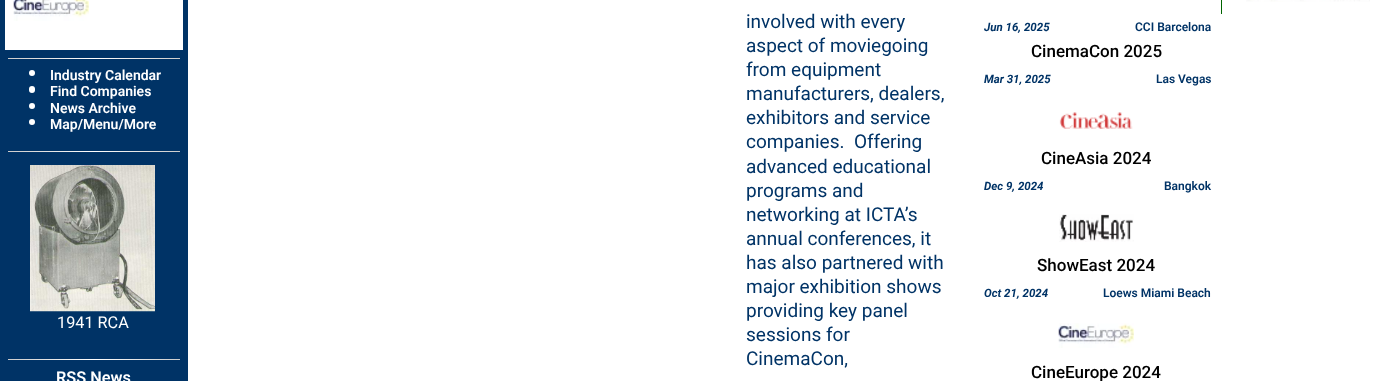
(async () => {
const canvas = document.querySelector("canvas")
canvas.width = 1391
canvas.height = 381
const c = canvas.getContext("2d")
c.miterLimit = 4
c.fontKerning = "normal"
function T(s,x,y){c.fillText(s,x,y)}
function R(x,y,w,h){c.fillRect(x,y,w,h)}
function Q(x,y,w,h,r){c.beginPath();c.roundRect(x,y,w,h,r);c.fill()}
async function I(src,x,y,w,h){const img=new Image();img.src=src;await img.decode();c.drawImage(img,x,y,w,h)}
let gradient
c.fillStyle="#fff"
R(0,0,1391,381)
c.fillStyle="#006400"
R(1221,0,1,14)
await I("1.png",1246,0,124,2)
c.fillStyle="#036"
R(0,0,188,381)
c.fillStyle="#fff"
R(5,0,178,50)
await I("2.png",13,0,76,21)
gradient = c.createLinearGradient(7.5,58,180,58)
gradient.addColorStop(0,"#ccc")
gradient.addColorStop(.5,"#fff")
gradient.addColorStop(1,"#ccc")
c.fillStyle = gradient
R(8,58,172,1)
c.fillStyle="#fff"
c.beginPath()
c.arc(32,73,3,0,7)
c.fill()
c.font="600 14px Roboto"
T("Industry Calendar",50,80)
Q(29,86,6,7,3)
T("Find Companies",50,96)
c.beginPath()
c.arc(32,106,3,0,7)
c.fill()
T("News Archive",50,113)
c.beginPath()
c.arc(32,122,3,0,7)
c.fill()
T("Map/Menu/More",50,129)
gradient = c.createLinearGradient(7.5,152,180,152)
gradient.addColorStop(0,"#ccc")
gradient.addColorStop(.5,"#fff")
gradient.addColorStop(1,"#ccc")
c.fillStyle = gradient
R(8,151,172,1)
await I("3.png",30,165,125,147)
c.font="16.25px Roboto"
c.fillStyle="#fff"
T("1941 RCA",57,328)
gradient = c.createLinearGradient(7.5,359,180,359)
gradient.addColorStop(0,"#ccc")
gradient.addColorStop(.5,"#fff")
gradient.addColorStop(1,"#ccc")
c.fillStyle = gradient
R(8,359,172,1)
c.font="600 16.25px Roboto"
c.fillStyle="#fff"
T("RSS News",56,383)
c.font="19px Roboto"
c.fillStyle="#036"
T("involved with every",746,28)
T("aspect of moviegoing",746,52)
T("from equipment",746,76)
T("manufacturers, dealers,",746,100)
T("exhibitors and service",746,124)
T("companies.  Offering",746,148)
T("advanced educational",746,173)
T("programs and",746,197)
T("networking at ICTA’s",746,221)
T("annual conferences, it",746,245)
T("has also partnered with",746,269)
T("major exhibition shows",746,293)
T("providing key panel",746,317)
T("sessions for",746,341)
T("CinemaCon,",746,365)
c.font="italic bold 11.5px Roboto"
T("Jun 16, 2025",984,31)
c.font="600 12px Roboto"
T("CCI Barcelona",1135,31)
c.font="500 17px Roboto"
c.fillStyle="#000"
T("CinemaCon 2025",1031,57)
c.font="italic bold 11.5px Roboto"
c.fillStyle="#036"
T("Mar 31, 2025",984,83)
c.font="600 12px Roboto"
T("Las Vegas",1156,83)
await I("4.png",1059,112,74,17)
c.font="500 17px Roboto"
c.fillStyle="#000"
T("CineAsia 2024",1041,164)
c.font="italic bold 11.5px Roboto"
c.fillStyle="#036"
T("Dec 9, 2024",984,190)
c.font="600 12px Roboto"
T("Bangkok",1164,190)
await I("5.png",1059,214,75,28)
c.font="500 17px Roboto"
c.fillStyle="#000"
T("ShowEast 2024",1037,271)
c.font="italic bold 11.5px Roboto"
c.fillStyle="#036"
T("Oct 21, 2024",984,297)
c.font="600 12px Roboto"
T("Loews Miami Beach",1103,297)
await I("6.png",1058,323,76,25)
c.font="500 17px Roboto"
c.fillStyle="#000"
T("CineEurope 2024",1031,378)
})()
